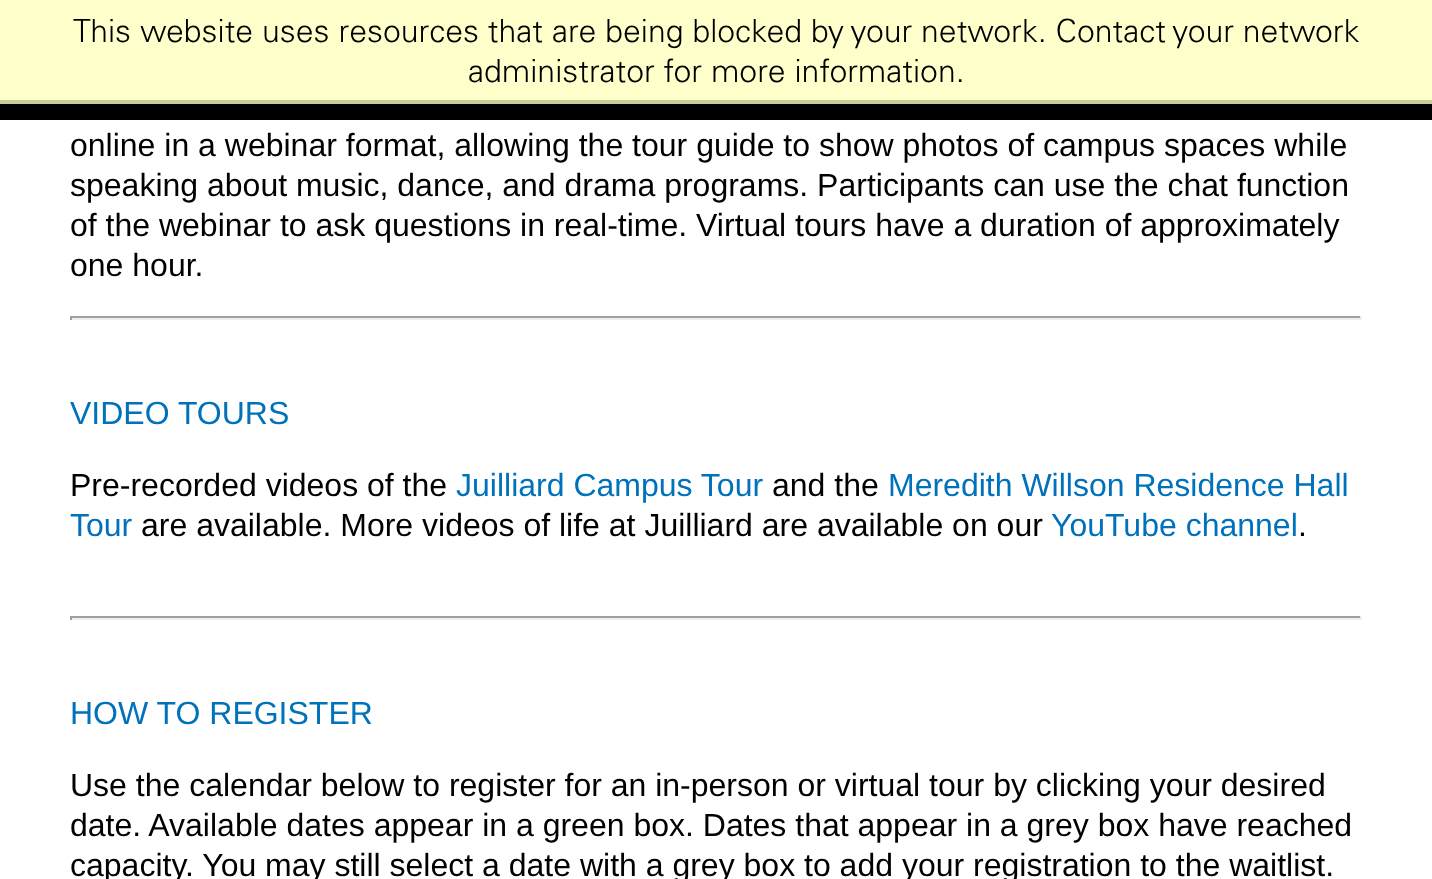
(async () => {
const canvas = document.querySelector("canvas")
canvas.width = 1432
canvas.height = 879
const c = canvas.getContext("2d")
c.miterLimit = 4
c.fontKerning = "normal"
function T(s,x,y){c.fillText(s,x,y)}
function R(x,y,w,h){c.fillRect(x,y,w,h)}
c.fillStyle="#fff"
R(0,0,1432,879)
c.fillStyle="#ffc"
R(0,0,1432,100)
c.fillStyle="#cc9"
R(0,100,1432,4)
c.font="300 32px Univers"
c.fillStyle="#000"
T("This website uses resources that are being blocked by your network. Contact your network",73,42)
T("administrator for more information.",468,82)
R(0,104,1432,16)
c.font="32px Liberation Sans"
T("online in a webinar format, allowing the tour guide to show photos of campus spaces while",70,156)
T("speaking about music, dance, and drama programs. Participants can use the chat function",70,196)
T("of the webinar to ask questions in real-time. Virtual tours have a duration of approximately",70,236)
T("one hour.",70,276)
c.fillStyle="#9f9f9f"
R(70,316,1292,2)
c.fillStyle="#eee"
R(1360,316,2,4)
R(70,318,1292,2)
c.fillStyle="#9f9f9f"
R(70,316,2,4)
c.fillStyle="#0071bb"
T("VIDEO TOURS",70,424)
c.fillStyle="#000"
T("Pre-recorded videos of the",70,496)
c.fillStyle="#0071bb"
T("Juilliard Campus Tour",456,496)
c.fillStyle="#000"
T("and the",772,496)
c.fillStyle="#0071bb"
T("Meredith Willson Residence Hall",888,496)
T("Tour",70,536)
c.fillStyle="#000"
T("are available. More videos of life at Juilliard are available on our",141,536)
c.fillStyle="#0071bb"
T("YouTube channel",1051,536)
c.fillStyle="#000"
T(".",1298,536)
c.fillStyle="#9f9f9f"
R(70,616,1292,2)
c.fillStyle="#eee"
R(1360,616,2,4)
R(70,618,1292,2)
c.fillStyle="#9f9f9f"
R(70,616,2,4)
c.fillStyle="#0071bb"
T("HOW TO REGISTER",70,724)
c.fillStyle="#000"
T("Use the calendar below to register for an in-person or virtual tour by clicking your desired",70,796)
T("date. Available dates appear in a green box. Dates that appear in a grey box have reached",70,836)
T("capacity. You may still select a date with a grey box to add your registration to the waitlist.",70,876)
})()
